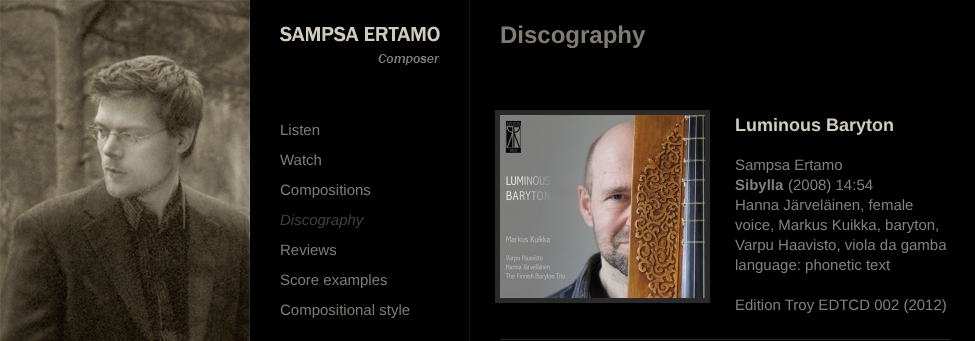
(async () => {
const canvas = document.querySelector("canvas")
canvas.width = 975
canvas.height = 341
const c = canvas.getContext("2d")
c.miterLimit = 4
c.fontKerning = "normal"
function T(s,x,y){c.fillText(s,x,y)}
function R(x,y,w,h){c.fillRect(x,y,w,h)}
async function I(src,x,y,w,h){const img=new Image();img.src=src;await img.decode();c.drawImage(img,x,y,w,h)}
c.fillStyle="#000"
R(0,0,975,341)
await I("1.png",0,0,250,341)
c.fillStyle="#191611"
R(469,0,1,341)
await I("2.png",280,26,160,39)
c.font="15px Liberation Sans"
c.fillStyle="#807c74"
T("Listen",280,135)
T("Watch",280,165)
T("Compositions",280,195)
c.font="italic 15px Liberation Sans"
c.fillStyle="#404040"
T("Discography",280,225)
c.font="15px Liberation Sans"
c.fillStyle="#807c74"
T("Reviews",280,255)
T("Score examples",280,285)
T("Compositional style",280,315)
c.font="bold 24px Liberation Sans"
T("Discography",500,43)
c.fillStyle="#282828"
R(500,339,450,1)
c.fillStyle="#2a2a2a"
R(495,110,215,193)
await I("3.png",500,115,205,183)
c.font="bold 18px Liberation Sans"
c.fillStyle="#d0cabe"
T("Luminous Baryton",735,131)
c.font="15px Liberation Sans"
c.fillStyle="#808080"
T("Sampsa Ertamo",735,170)
c.font="bold 15px Liberation Sans"
T("Sibylla",735,190)
c.font="15px Liberation Sans"
T("(2008) 14:54",788,190)
T("Hanna Järveläinen, female",735,210)
T("voice, Markus Kuikka, baryton,",735,230)
T("Varpu Haavisto, viola da gamba",735,250)
T("language: phonetic text",735,270)
T("Edition Troy EDTCD 002 (2012)",735,310)
})()
